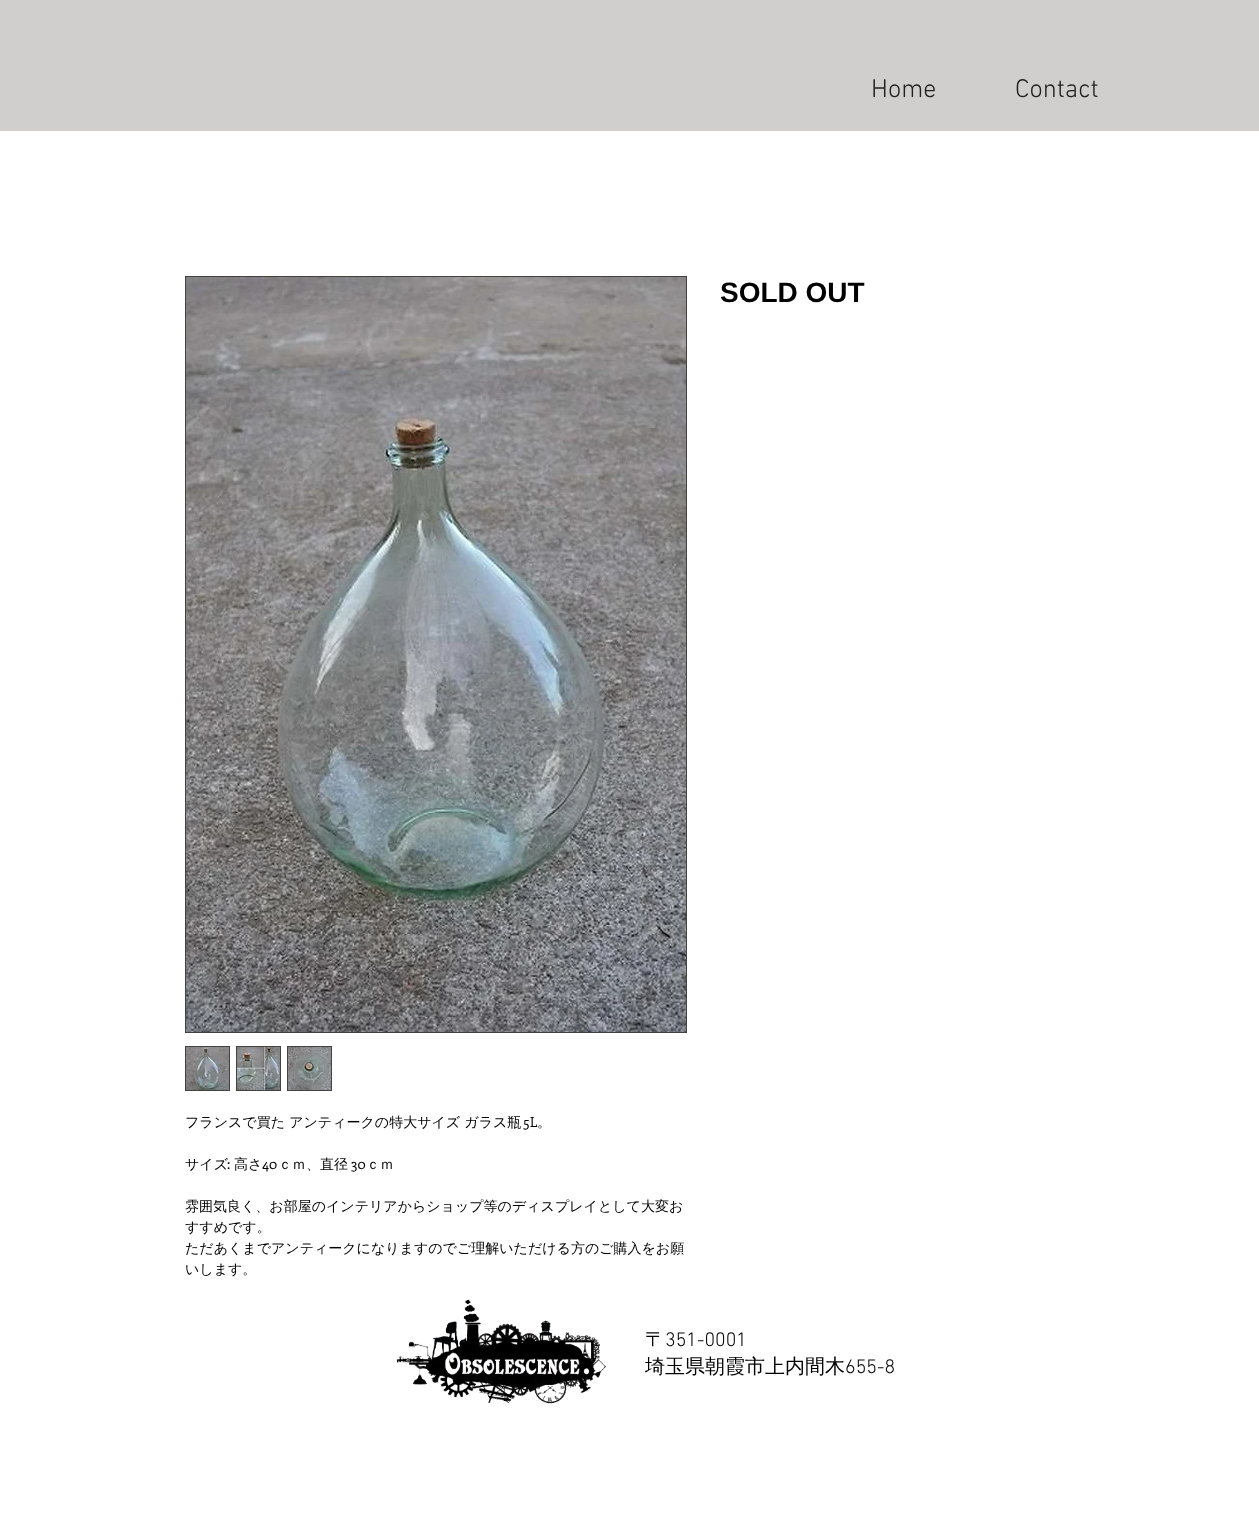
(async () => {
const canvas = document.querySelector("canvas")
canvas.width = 1259
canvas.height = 1519
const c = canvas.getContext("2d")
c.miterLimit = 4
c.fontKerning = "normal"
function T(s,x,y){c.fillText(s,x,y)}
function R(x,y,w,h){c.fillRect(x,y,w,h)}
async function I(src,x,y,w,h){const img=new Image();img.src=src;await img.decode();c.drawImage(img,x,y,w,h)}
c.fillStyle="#fff"
R(0,0,1259,1519)
c.fillStyle="#d0cfcd"
R(0,0,1259,131)
c.font="300 26px 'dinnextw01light'"
c.fillStyle="#222120"
T("Home",871,97)
T("Contact",1015,97)
c.font="bold 28px Liberation Sans"
c.fillStyle="#000"
T("SOLD OUT",720,302)
c.strokeStyle="#43423f"
c.strokeRect(185.5,276.5,501,756)
await I("1.png",186,277,500,755)
c.fillStyle="#43423f"
R(185,1046,45,45)
await I("2.png",186,1047,43,43)
R(236,1046,45,45)
await I("3.png",237,1047,43,43)
R(287,1046,45,45)
await I("4.png",288,1047,43,43)
c.font="500 14px WenQuanYi Zen Hei"
c.fillStyle="#000"
T("フランスで買た アンティークの特大サイズ ガラス瓶",185,1127)
c.font="14px Enriqueta"
T("5L",523,1127)
c.font="500 14px WenQuanYi Zen Hei"
T("。",537,1127)
T("サイズ",185,1169)
c.font="14px Enriqueta"
T(":",227,1169)
c.font="500 14px WenQuanYi Zen Hei"
T("高さ",234,1169)
c.font="14px Enriqueta"
T("40",262,1169)
c.font="500 14px WenQuanYi Zen Hei"
T("ｃｍ、直径",278,1169)
c.font="14px Enriqueta"
T("30",351,1169)
c.font="500 14px WenQuanYi Zen Hei"
T("ｃｍ",366,1169)
T("雰囲気良く、お部屋のインテリアからショップ等のディスプレイとして大変お",185,1211)
T("すすめです。",185,1232)
T("ただあくまでアンティークになりますのでご理解いただける方のご購入をお願",185,1253)
T("いします。",185,1274)
await I("5.png",396,1299,211,105)
c.font="500 20px WenQuanYi Zen Hei"
T("〒",645,1346)
c.font="300 20px 'dinnextw01light'"
T("351-0001",665,1346)
c.font="500 20px WenQuanYi Zen Hei"
T("埼玉県朝霞市上内間木",645,1373)
c.font="300 20px 'dinnextw01light'"
T("655-8",845,1373)
})()
